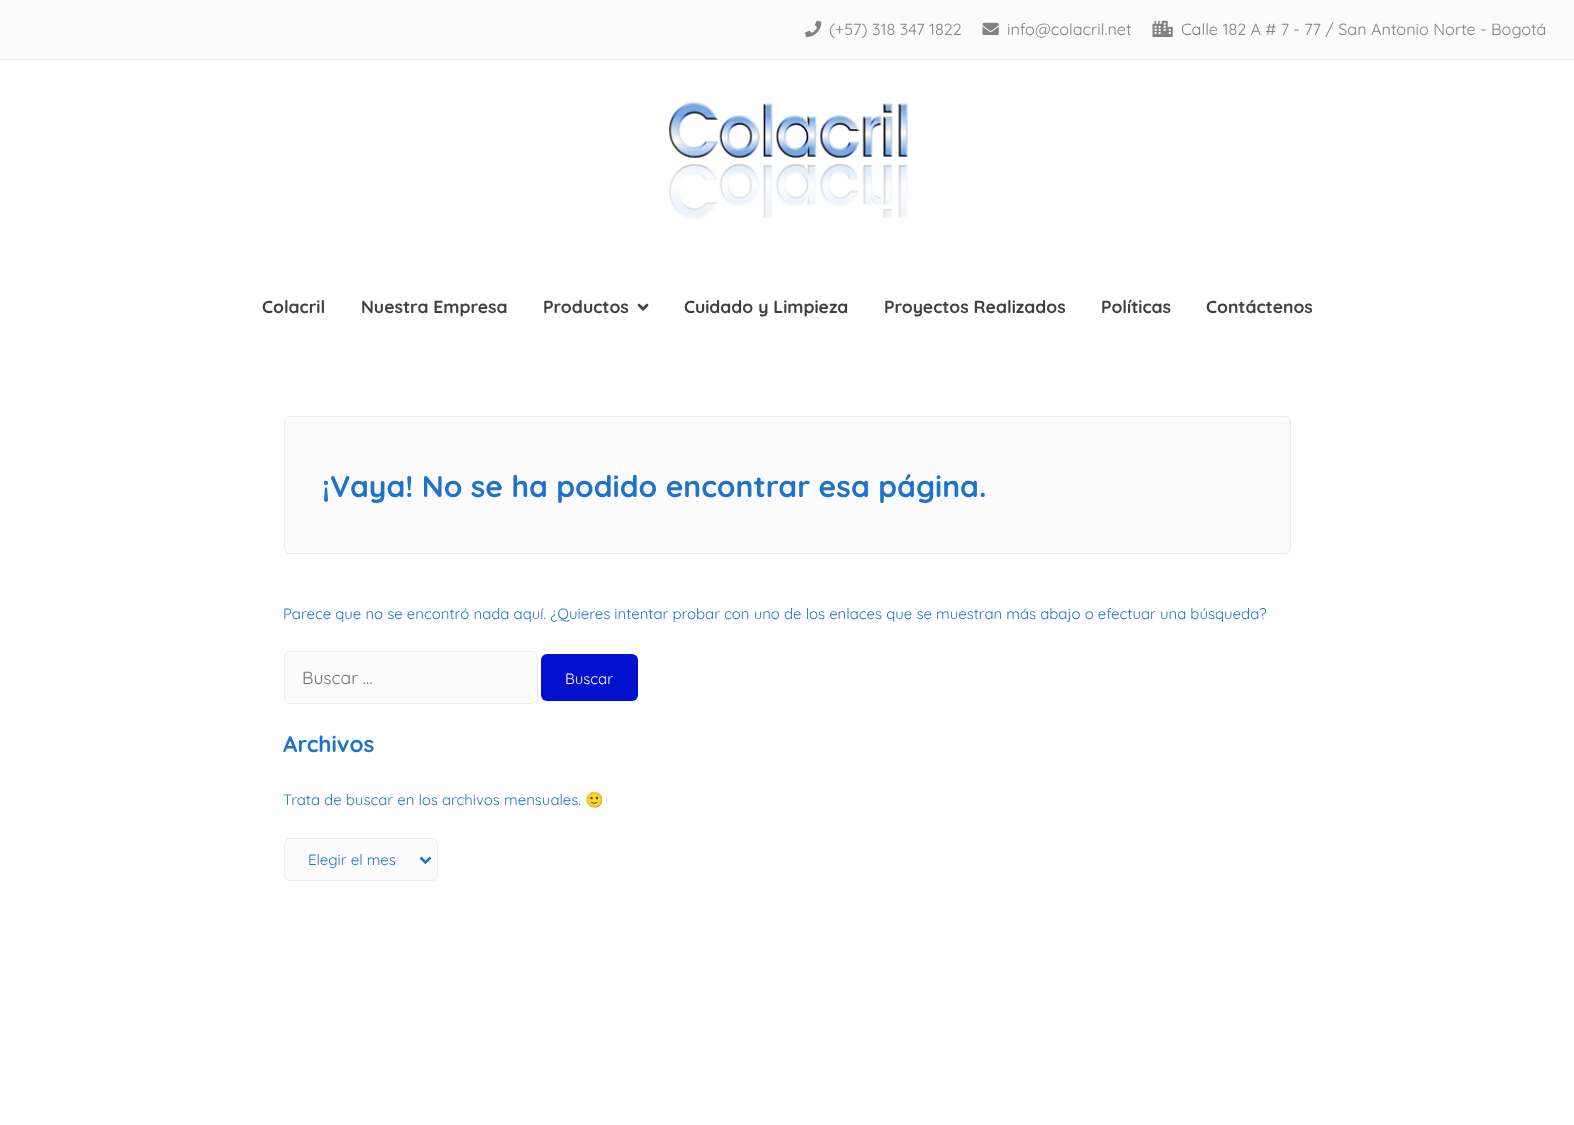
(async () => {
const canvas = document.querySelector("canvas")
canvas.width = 1574
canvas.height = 1125
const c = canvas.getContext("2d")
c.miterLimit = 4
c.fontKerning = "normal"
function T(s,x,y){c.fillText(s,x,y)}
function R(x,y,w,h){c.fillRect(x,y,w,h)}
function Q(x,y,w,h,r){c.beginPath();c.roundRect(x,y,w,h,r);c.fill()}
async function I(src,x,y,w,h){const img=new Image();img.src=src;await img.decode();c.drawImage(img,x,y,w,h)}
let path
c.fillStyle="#fff"
R(0,0,1574,1125)
c.fillStyle="#fbfbfb"
R(0,0,1574,59)
c.fillStyle="#ececec"
R(0,59,1574,1)
await I("1.png",805,20,17,17)
c.font="16.25px Quicksand"
c.fillStyle="#828282"
T("(+57) 318 347 1822",829,35)
await I("2.png",982,22,17,13)
T("info@colacril.net",1007,35)
await I("3.png",1152,20,21,17)
T("Calle 182 A # 7 - 77 / San Antonio Norte - Bogotá",1181,35)
await I("4.png",669,102,239,117)
c.font="bold 17.5px Quicksand"
c.fillStyle="#404040"
T("Colacril",262,313)
T("Nuestra Empresa",361,313)
T("Productos",543,313)
await I("5.png",637,303,12,8)
T("Cuidado y Limpieza",684,313)
T("Proyectos Realizados",884,313)
T("Políticas",1101,313)
T("Contáctenos",1206,313)
c.fillStyle="#fbfbfb"
c.beginPath()
c.roundRect(284.5,416.5,1006,137,5.5)
c.fill()
c.strokeStyle="#ececec"
c.stroke()
c.font="bold 30px Quicksand"
c.fillStyle="#1e72cc"
T("¡Vaya! No se ha podido encontrar esa página.",322,497)
c.font="15px Quicksand"
T("Parece que no se encontró nada aquí. ¿Quieres intentar probar con uno de los enlaces que se muestran más abajo o efectuar una búsqueda?",283,619)
c.fillStyle="#fbfbfb"
c.beginPath()
c.roundRect(284.5,651.5,253,52,5.5)
c.fill()
c.stroke()
c.font="17.5px Quicksand"
c.fillStyle="#757575"
T("Buscar …",302,684)
c.fillStyle="#0010cc"
Q(541,654,97,47,6)
c.font="15px Quicksand"
c.fillStyle="#fff"
T("Buscar",565,684)
c.font="bold 22.5px Quicksand"
c.fillStyle="#1e72cc"
T("Archivos",283,752)
c.font="15px Quicksand"
T("Trata de buscar en los archivos mensuales.",283,805)
c.font="15px Noto Color Emoji"
T("🙂",585,805)
c.fillStyle="#fbfbfb"
c.beginPath()
c.roundRect(284.5,838.5,153,42,5.5)
c.fill()
c.stroke()
path = new Path2D("M420.5 857.5l5 5l5-5")
c.strokeStyle="#1e72cc"
c.lineWidth=2.5
c.stroke(path)
c.font="15px Quicksand"
c.fillStyle="#1e72cc"
T("Elegir el mes",308,865)
})()
